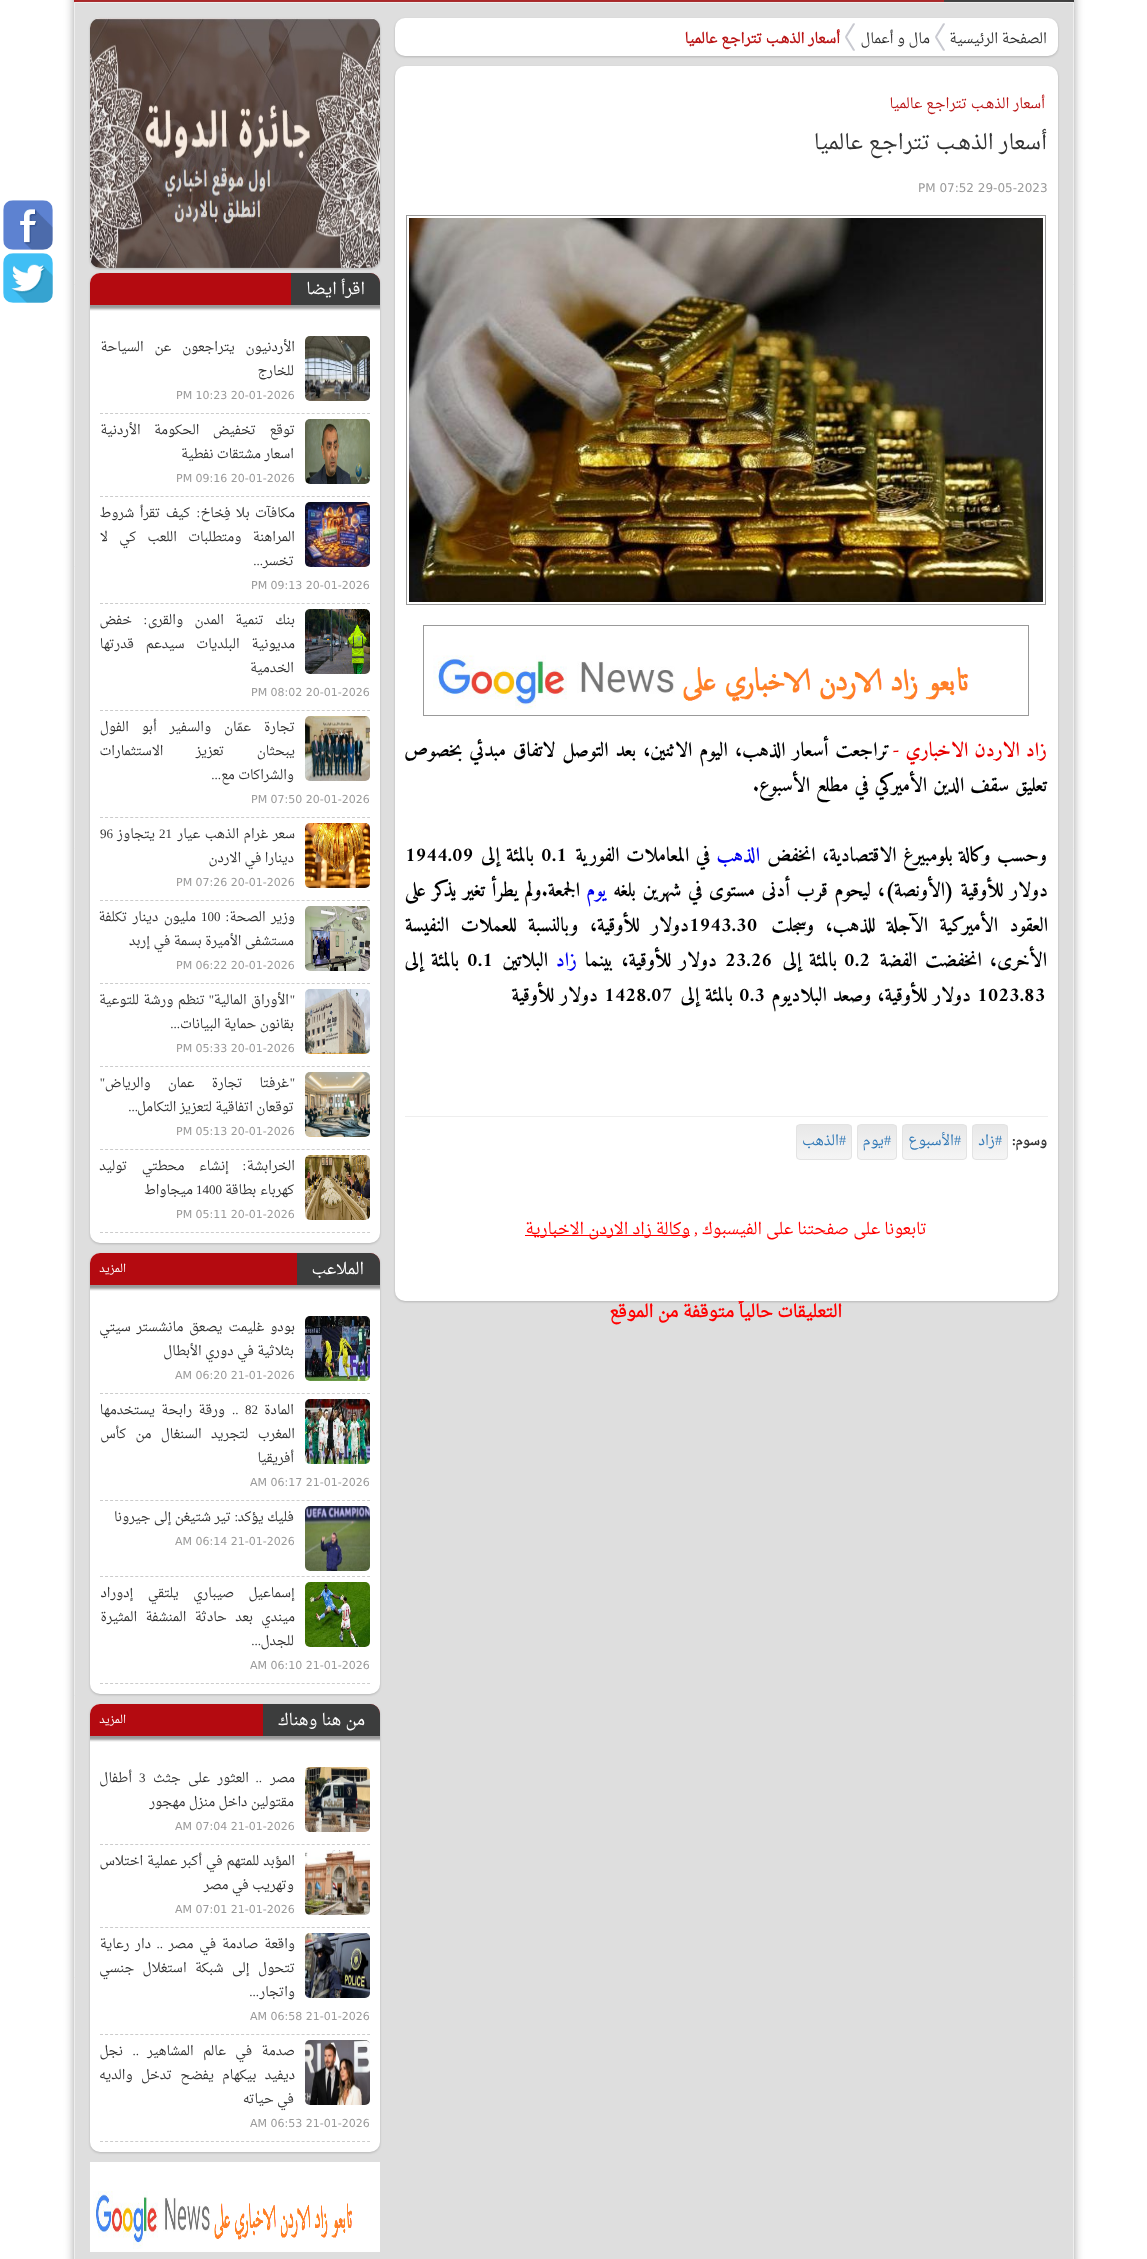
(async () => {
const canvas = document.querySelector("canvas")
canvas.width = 1147
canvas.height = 2259
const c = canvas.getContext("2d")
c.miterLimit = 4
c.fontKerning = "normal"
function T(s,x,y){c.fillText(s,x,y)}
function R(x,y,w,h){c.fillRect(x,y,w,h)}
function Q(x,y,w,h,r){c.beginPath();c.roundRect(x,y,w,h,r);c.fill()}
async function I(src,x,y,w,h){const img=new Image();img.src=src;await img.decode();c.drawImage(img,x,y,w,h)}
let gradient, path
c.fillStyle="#fff"
R(0,0,1147,2259)
c.fillStyle="#787878b3"
c.filter="blur(5px)"
c.beginPath()
c.rect(74,-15,1000,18)
c.fill()
c.filter="none"
c.fillStyle="#323232"
R(944,0,130,2)
c.fillStyle="#b91415"
R(74,0,870,2)
c.fillStyle="#787878b3"
c.filter="blur(5px)"
c.beginPath()
c.rect(74,3,1000,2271)
c.fill()
c.filter="none"
c.fillStyle="#dedede"
c.beginPath()
c.rect(74.5,2.5,999,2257)
c.fill()
c.strokeStyle="#eee"
c.stroke()
c.fillStyle="#78787866"
c.filter="blur(1px)"
c.beginPath()
c.roundRect(395,19,663,38,10)
c.fill()
c.filter="none"
c.fillStyle="#fff"
Q(395,18,663,38,10)
await I("1.png",935,23,10,28)
c.direction="rtl"
c.font="14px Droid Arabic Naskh"
c.fillStyle="#333"
T("الصفحة الرئيسية",1047,43)
await I("1.png",845,23,10,28)
T("مال و أعمال",930,43)
c.font="bold 14px Droid Arabic Naskh"
c.fillStyle="#b91415"
T("أسعار الذهـب تتراجـع عالميا",840,43)
c.fillStyle="#78787866"
c.filter="blur(1px)"
c.beginPath()
c.roundRect(395,67,663,1235,10)
c.fill()
c.filter="none"
c.font="bold 17px Droid Arabic Naskh"
c.fillStyle="#f00"
T("التعليقات حالياً متوقفة من الموقع",842,1317)
c.fillStyle="#fff"
Q(395,66,663,1235,10)
c.font="14px Droid Arabic Naskh"
c.fillStyle="#b91415"
T("أسعار الذهـب تتراجـع عالميا",1045,108)
c.font="21px Droid Arabic Naskh"
c.fillStyle="#333"
T("أسعار الذهـب تتراجـع عالميا",1047,149)
c.direction="ltr"
c.font="12px DejaVu Sans"
c.fillStyle="#999"
T("PM 07:52 29-05-2023",918,192)
c.strokeStyle="#999"
c.strokeRect(406.5,215.5,639,389)
await I("2.png",409,218,634,384)
c.strokeRect(423.5,625.5,605,90)
await I("3.png",433,655,536,55)
c.wordSpacing="1px"
c.direction="rtl"
c.font="bold 20px Amiri"
c.fillStyle="#000"
T("تراجعت أسعار الذهب، اليوم الاثنين، بعد التوصل لاتفاق مبدئي بخصوص",890,756)
c.wordSpacing="0px"
T("تعليق سقف الدين الأميركي في مطلع الأسبوع.",1047,791)
c.wordSpacing="0.5px"
T("وحسب وكالة بلومبيرغ الاقتصادية، انخفض",1047,861)
c.wordSpacing="0px"
c.fillStyle="#00e"
T("الذهب",760,861)
c.wordSpacing="0.5px"
c.fillStyle="#000"
T("في المعاملات الفورية",710,861)
c.wordSpacing="0px"
c.direction="ltr"
T("0.1",541,861)
c.wordSpacing="0.5px"
c.direction="rtl"
T("بالمئة إلى",534,861)
c.wordSpacing="0px"
c.direction="ltr"
T("1944.09",405,861)
c.wordSpacing="0.75px"
c.direction="rtl"
T("دولار للأوقية (الأونصة)، ليحوم قرب أدنى مستوى في شهرين بلغه",1048,896)
c.wordSpacing="0px"
c.fillStyle="#00e"
T("يوم",606,896)
c.wordSpacing="0.75px"
c.fillStyle="#000"
T("الجمعة.ولم يطرأ تغير يذكر على",580,896)
c.wordSpacing="5.5px"
T("العقود الأميركية الآجلة للذهب، وسجلت",1048,931)
c.wordSpacing="0px"
c.direction="ltr"
T("1943.30",689,931)
c.wordSpacing="5.5px"
c.direction="rtl"
T("دولار للأوقية، وبالنسبة للعملات النفيسة",689,931)
c.wordSpacing="2px"
T("الأخرى، انخفضت الفضة",1047,966)
c.wordSpacing="0px"
c.direction="ltr"
T("0.2",844,966)
c.wordSpacing="2px"
c.direction="rtl"
T("بالمئة إلى",837,966)
c.wordSpacing="0px"
c.direction="ltr"
T("23.26",725,966)
c.wordSpacing="2px"
c.direction="rtl"
T("دولار للأوقية، بينما",717,966)
c.wordSpacing="0px"
c.fillStyle="#00e"
T("زاد",577,966)
c.fillStyle="#000"
T("البلاتين",548,966)
c.direction="ltr"
T("0.1",467,966)
c.wordSpacing="2px"
c.direction="rtl"
T("بالمئة إلى",459,966)
c.wordSpacing="0px"
c.direction="ltr"
T("1023.83",977,1001)
c.direction="rtl"
T("دولار للأوقية، وصعد البلاديوم",971,1001)
c.direction="ltr"
T("0.3",739,1001)
c.direction="rtl"
T("بالمئة إلى",733,1001)
c.direction="ltr"
T("1428.07",604,1001)
c.direction="rtl"
T("دولار للأوقية",598,1001)
c.fillStyle="#e70000"
T("زاد الاردن الاخباري -",1047,756)
c.fillStyle="#eee"
R(405,1116,643,1)
c.font="bold 13px Droid Arabic Naskh"
c.fillStyle="#333"
T("وسوم",1047,1145)
c.font="bold 13px Liberation Serif"
T(":",1016,1145)
c.save()
c.beginPath()
c.roundRect(972,1124,36,36,4)
c.clip()
gradient = c.createLinearGradient(990,1125,990,1159)
gradient.addColorStop(0,"#e8e8e8")
gradient.addColorStop(1,"#f5f5f5")
c.fillStyle = gradient
R(972,1125,36,34)
c.restore()
c.beginPath()
c.roundRect(972.5,1124.5,35,35,3.5)
c.strokeStyle="#e3e3e3"
c.stroke()
c.font="14px Liberation Serif"
c.fillStyle="#337ab7"
T("#",1002,1145)
c.font="14px Droid Arabic Naskh"
T("زاد",995,1145)
c.save()
c.beginPath()
c.roundRect(902,1124,65,36,4)
c.clip()
gradient = c.createLinearGradient(935,1125,935,1159)
gradient.addColorStop(0,"#e8e8e8")
gradient.addColorStop(1,"#f5f5f5")
c.fillStyle = gradient
R(902,1125,65,34)
c.restore()
c.beginPath()
c.roundRect(902.5,1124.5,64,35,3.5)
c.stroke()
c.font="14px Liberation Serif"
T("#",961,1145)
c.font="14px Droid Arabic Naskh"
T("الأسبوع",954,1145)
c.save()
c.beginPath()
c.roundRect(857,1124,40,36,4)
c.clip()
gradient = c.createLinearGradient(877,1125,877,1159)
gradient.addColorStop(0,"#e8e8e8")
gradient.addColorStop(1,"#f5f5f5")
c.fillStyle = gradient
R(857,1125,40,34)
c.restore()
c.beginPath()
c.roundRect(857.5,1124.5,39,35,3.5)
c.stroke()
c.font="14px Liberation Serif"
T("#",891,1145)
c.font="14px Droid Arabic Naskh"
T("يوم",884,1145)
c.save()
c.beginPath()
c.roundRect(796,1124,56,36,4)
c.clip()
gradient = c.createLinearGradient(824,1125,824,1159)
gradient.addColorStop(0,"#e8e8e8")
gradient.addColorStop(1,"#f5f5f5")
c.fillStyle = gradient
R(796,1125,56,34)
c.restore()
c.beginPath()
c.roundRect(796.5,1124.5,55,35,3.5)
c.stroke()
c.font="14px Liberation Serif"
T("#",846,1145)
c.font="14px Droid Arabic Naskh"
T("الذهب",839,1145)
c.font="16px Droid Arabic Naskh"
c.fillStyle="#f00"
T("تابعونا على صفحتنا على الفيسبوك",927,1234)
c.font="16px Liberation Serif"
T(",",698,1234)
R(525,1235,165,1)
c.font="16px Droid Arabic Naskh"
T("وكالة زاد الاردن الاخبارية",690,1234)
c.fillStyle="#78787866"
c.filter="blur(1px)"
c.beginPath()
c.roundRect(90,19,290,250,10)
c.fill()
c.filter="none"
c.fillStyle="#fff"
Q(90,18,290,250,10)
await I("4.png",90,18,290,250)
c.fillStyle="#78787866"
c.filter="blur(1px)"
c.beginPath()
c.roundRect(90,274,290,970,10)
c.fill()
c.filter="none"
c.fillStyle="#fff"
Q(90,273,290,970,10)
await I("5.png",90,273,290,38)
c.fillStyle="#3c3d3d"
c.beginPath()
c.roundRect(291,273,89,32,[0,10,0,0])
c.fill()
c.fillStyle="#fff"
T("اقرأ ايضا",365,294)
path = new Path2D("M100 413.5h270")
c.strokeStyle="#ccc"
c.setLineDash([3,2.04])
c.stroke(path)
await I("6.png",305,336,65,65)
c.wordSpacing="7.5px"
c.font="13px Droid Arabic Naskh"
c.fillStyle="#333"
T("الأردنيون يتراجعون عن السياحة",295,351)
c.wordSpacing="0px"
T("للخارج",294,375)
c.direction="ltr"
c.font="11px DejaVu Sans"
c.fillStyle="#999"
T("PM 10:23 20-01-2026",176,399)
path = new Path2D("M100 496.5h270")
c.stroke(path)
await I("7.png",305,419,65,65)
c.wordSpacing="10px"
c.direction="rtl"
c.font="13px Droid Arabic Naskh"
c.fillStyle="#333"
T("توقع تخفيض الحكومة الأردنية",295,434)
c.wordSpacing="0px"
T("اسعار مشتقات نفطية",294,458)
c.direction="ltr"
c.font="11px DejaVu Sans"
c.fillStyle="#999"
T("PM 09:16 20-01-2026",176,482)
path = new Path2D("M100 603.5h270")
c.stroke(path)
await I("8.png",305,502,65,65)
c.wordSpacing="2px"
c.direction="rtl"
c.font="13px Droid Arabic Naskh"
c.fillStyle="#333"
T("مكافآت بلا فِخاخ",295,517)
c.wordSpacing="0px"
c.font="13px Liberation Serif"
T(":",200,517)
c.wordSpacing="2px"
c.font="13px Droid Arabic Naskh"
T("كيف تقرأ شروط",190,517)
c.wordSpacing="8px"
T("المراهنة ومتطلبات اللعب كي لا",295,541)
c.wordSpacing="0px"
c.font="13px Liberation Serif"
T("...",263,565)
c.font="13px Droid Arabic Naskh"
T("تخسر",294,565)
c.direction="ltr"
c.font="11px DejaVu Sans"
c.fillStyle="#999"
T("PM 09:13 20-01-2026",251,589)
path = new Path2D("M100 710.5h270")
c.stroke(path)
await I("9.png",305,609,65,65)
c.wordSpacing="8px"
c.direction="rtl"
c.font="13px Droid Arabic Naskh"
c.fillStyle="#333"
T("بنك تنمية المدن والقرى",295,624)
c.wordSpacing="0px"
c.font="13px Liberation Serif"
T(":",147,624)
c.font="13px Droid Arabic Naskh"
T("خفض",132,624)
c.wordSpacing="8.5px"
T("مديونية البلديات سيدعم قدرتها",295,648)
c.wordSpacing="0px"
T("الخدمية",294,672)
c.direction="ltr"
c.font="11px DejaVu Sans"
c.fillStyle="#999"
T("PM 08:02 20-01-2026",251,696)
path = new Path2D("M100 817.5h270")
c.stroke(path)
await I("10.png",305,716,65,65)
c.wordSpacing="9.5px"
c.direction="rtl"
c.font="13px Droid Arabic Naskh"
c.fillStyle="#333"
T("تجارة عمّان والسفير أبو الفول",295,731)
c.wordSpacing="29px"
T("يبحثان تعزيز الاستثمارات",295,755)
c.wordSpacing="0px"
T("والشراكات مع",294,779)
c.font="13px Liberation Serif"
T("...",221,779)
c.direction="ltr"
c.font="11px DejaVu Sans"
c.fillStyle="#999"
T("PM 07:50 20-01-2026",251,803)
path = new Path2D("M100 900.5h270")
c.stroke(path)
await I("11.png",305,823,65,65)
c.wordSpacing="1px"
c.direction="rtl"
c.font="13px Droid Arabic Naskh"
c.fillStyle="#333"
T("سعر غرام الذهب عيار",295,838)
c.wordSpacing="0px"
c.direction="ltr"
c.font="13px Liberation Serif"
T("21",159,838)
c.direction="rtl"
c.font="13px Droid Arabic Naskh"
T("يتجاوز",155,838)
c.direction="ltr"
c.font="13px Liberation Serif"
T("96",100,838)
c.direction="rtl"
c.font="13px Droid Arabic Naskh"
T("دينارا في الاردن",294,862)
c.direction="ltr"
c.font="11px DejaVu Sans"
c.fillStyle="#999"
T("PM 07:26 20-01-2026",176,886)
path = new Path2D("M100 983.5h270")
c.stroke(path)
await I("12.png",305,906,65,65)
c.wordSpacing="2px"
c.direction="rtl"
c.font="13px Droid Arabic Naskh"
c.fillStyle="#333"
T("وزير الصحة",295,921)
c.wordSpacing="0px"
c.font="13px Liberation Serif"
T(":",229,921)
c.direction="ltr"
T("100",201,921)
c.wordSpacing="2px"
c.direction="rtl"
c.font="13px Droid Arabic Naskh"
T("مليون دينار تكلفة",196,921)
c.wordSpacing="0px"
T("مستشفى الأميرة بسمة في إربد",294,945)
c.direction="ltr"
c.font="11px DejaVu Sans"
c.fillStyle="#999"
T("PM 06:22 20-01-2026",176,969)
path = new Path2D("M100 1066.5h270")
c.stroke(path)
await I("13.png",305,989,65,65)
c.direction="rtl"
c.font="13px Liberation Serif"
c.fillStyle="#333"
T("\"",295,1004)
c.wordSpacing="1px"
c.font="13px Droid Arabic Naskh"
T("الأوراق المالية",289,1004)
c.wordSpacing="0px"
c.font="13px Liberation Serif"
T("\"",214,1004)
c.wordSpacing="1px"
c.font="13px Droid Arabic Naskh"
T("تنظم ورشة للتوعية",205,1004)
c.wordSpacing="0px"
T("بقانون حماية البيانات",294,1028)
c.font="13px Liberation Serif"
T("...",180,1028)
c.direction="ltr"
c.font="11px DejaVu Sans"
c.fillStyle="#999"
T("PM 05:33 20-01-2026",176,1052)
path = new Path2D("M100 1149.5h270")
c.stroke(path)
await I("14.png",305,1072,65,65)
c.direction="rtl"
c.font="13px Liberation Serif"
c.fillStyle="#333"
T("\"",295,1087)
c.wordSpacing="13.5px"
c.font="13px Droid Arabic Naskh"
T("غرفتا تجارة عمان والرياض",289,1087)
c.wordSpacing="0px"
c.font="13px Liberation Serif"
T("\"",105,1087)
c.font="13px Droid Arabic Naskh"
T("توقعان اتفاقية لتعزيز التكامل",294,1111)
c.font="13px Liberation Serif"
T("...",138,1111)
c.direction="ltr"
c.font="11px DejaVu Sans"
c.fillStyle="#999"
T("PM 05:13 20-01-2026",176,1135)
path = new Path2D("M100 1232.5h270")
c.stroke(path)
await I("15.png",305,1155,65,65)
c.direction="rtl"
c.font="13px Droid Arabic Naskh"
c.fillStyle="#333"
T("الخرابشة",295,1170)
c.font="13px Liberation Serif"
T(":",246,1170)
c.wordSpacing="11px"
c.font="13px Droid Arabic Naskh"
T("إنشاء محطتي توليد",229,1170)
c.wordSpacing="0px"
T("كهرباء بطاقة",294,1194)
c.direction="ltr"
c.font="13px Liberation Serif"
T("1400",196,1194)
c.direction="rtl"
c.font="13px Droid Arabic Naskh"
T("ميجاواط",193,1194)
c.direction="ltr"
c.font="11px DejaVu Sans"
c.fillStyle="#999"
T("PM 05:11 20-01-2026",176,1218)
c.fillStyle="#78787866"
c.filter="blur(1px)"
c.beginPath()
c.roundRect(90,1254,290,441,10)
c.fill()
c.filter="none"
c.fillStyle="#fff"
Q(90,1253,290,441,10)
await I("5.png",90,1253,290,38)
c.fillStyle="#3c3d3d"
c.beginPath()
c.roundRect(297,1253,83,32,[0,10,0,0])
c.fill()
c.direction="rtl"
c.font="16px Droid Arabic Naskh"
c.fillStyle="#fff"
T("الملاعب",364,1274)
c.font="11px Droid Arabic Naskh"
T("المزيد",126,1272)
path = new Path2D("M100 1393.5h270")
c.stroke(path)
await I("16.png",305,1316,65,65)
c.wordSpacing="2.5px"
c.font="13px Droid Arabic Naskh"
c.fillStyle="#333"
T("بودو غليمت يصعق مانشستر سيتي",295,1331)
c.wordSpacing="0px"
T("بثلاثية في دوري الأبطال",294,1355)
c.direction="ltr"
c.font="11px DejaVu Sans"
c.fillStyle="#999"
T("AM 06:20 21-01-2026",175,1379)
path = new Path2D("M100 1500.5h270")
c.stroke(path)
await I("17.png",305,1399,65,65)
c.direction="rtl"
c.font="13px Droid Arabic Naskh"
c.fillStyle="#333"
T("المادة",294,1414)
c.direction="ltr"
c.font="13px Liberation Serif"
T("82",245,1414)
T("..",232,1414)
c.wordSpacing="3px"
c.direction="rtl"
c.font="13px Droid Arabic Naskh"
T("ورقة رابحة يستخدمها",225,1414)
c.wordSpacing="6px"
T("المغرب لتجريد السنغال من كأس",295,1438)
c.wordSpacing="0px"
T("أفريقيا",294,1462)
c.direction="ltr"
c.font="11px DejaVu Sans"
c.fillStyle="#999"
T("AM 06:17 21-01-2026",250,1486)
path = new Path2D("M100 1576.5h270")
c.stroke(path)
await I("18.png",305,1506,65,65)
c.direction="rtl"
c.font="13px Droid Arabic Naskh"
c.fillStyle="#333"
T("فليك يؤكد",294,1521)
c.font="13px Liberation Serif"
T(":",238,1521)
c.font="13px Droid Arabic Naskh"
T("تير شتيغن إلى جيرونا",231,1521)
c.direction="ltr"
c.font="11px DejaVu Sans"
c.fillStyle="#999"
T("AM 06:14 21-01-2026",175,1545)
path = new Path2D("M100 1683.5h270")
c.stroke(path)
await I("19.png",305,1582,65,65)
c.wordSpacing="11px"
c.direction="rtl"
c.font="13px Droid Arabic Naskh"
c.fillStyle="#333"
T("إسماعيل صيباري يلتقي إدوراد",295,1597)
c.wordSpacing="5px"
T("ميندي بعد حادثة المنشفة المثيرة",295,1621)
c.wordSpacing="0px"
T("للجدل",294,1645)
c.font="13px Liberation Serif"
T("...",261,1645)
c.direction="ltr"
c.font="11px DejaVu Sans"
c.fillStyle="#999"
T("AM 06:10 21-01-2026",250,1669)
c.fillStyle="#78787866"
c.filter="blur(1px)"
c.beginPath()
c.roundRect(90,1705,290,448,10)
c.fill()
c.filter="none"
c.fillStyle="#fff"
Q(90,1704,290,448,10)
await I("5.png",90,1704,290,38)
c.fillStyle="#3c3d3d"
c.beginPath()
c.roundRect(263,1704,117,32,[0,10,0,0])
c.fill()
c.direction="rtl"
c.font="16px Droid Arabic Naskh"
c.fillStyle="#fff"
T("من هنا وهناك",365,1725)
c.font="11px Droid Arabic Naskh"
T("المزيد",126,1723)
path = new Path2D("M100 1844.5h270")
c.stroke(path)
await I("20.png",305,1767,65,65)
c.font="13px Droid Arabic Naskh"
c.fillStyle="#333"
T("مصر",295,1782)
c.font="13px Liberation Serif"
T("..",262,1782)
c.wordSpacing="4px"
c.font="13px Droid Arabic Naskh"
T("العثور على جثث",249,1782)
c.wordSpacing="0px"
c.direction="ltr"
c.font="13px Liberation Serif"
T("3",139,1782)
c.direction="rtl"
c.font="13px Droid Arabic Naskh"
T("أطفال",132,1782)
T("مقتولين داخل منزل مهجور",294,1806)
c.direction="ltr"
c.font="11px DejaVu Sans"
c.fillStyle="#999"
T("AM 07:04 21-01-2026",175,1830)
path = new Path2D("M100 1927.5h270")
c.stroke(path)
await I("21.png",305,1850,65,65)
c.wordSpacing="0.5px"
c.direction="rtl"
c.font="13px Droid Arabic Naskh"
c.fillStyle="#333"
T("المؤبد للمتهم في أكبر عملية اختلاس",295,1865)
c.wordSpacing="0px"
T("وتهريب في مصر",294,1889)
c.direction="ltr"
c.font="11px DejaVu Sans"
c.fillStyle="#999"
T("AM 07:01 21-01-2026",175,1913)
path = new Path2D("M100 2034.5h270")
c.stroke(path)
await I("22.png",305,1933,65,65)
c.wordSpacing="2.5px"
c.direction="rtl"
c.font="13px Droid Arabic Naskh"
c.fillStyle="#333"
T("واقعة صادمة في مصر",295,1948)
c.wordSpacing="0px"
c.font="13px Liberation Serif"
T("..",163,1948)
c.wordSpacing="2.5px"
c.font="13px Droid Arabic Naskh"
T("دار رعاية",151,1948)
c.wordSpacing="5px"
T("تتحول إلى شبكة استغلال جنسي",295,1972)
c.wordSpacing="0px"
c.font="13px Liberation Serif"
T("...",259,1996)
c.font="13px Droid Arabic Naskh"
T("واتجار",295,1996)
c.direction="ltr"
c.font="11px DejaVu Sans"
c.fillStyle="#999"
T("AM 06:58 21-01-2026",250,2020)
path = new Path2D("M100 2141.5h270")
c.stroke(path)
await I("23.png",305,2040,65,65)
c.wordSpacing="6px"
c.direction="rtl"
c.font="13px Droid Arabic Naskh"
c.fillStyle="#333"
T("صدمة في عالم المشاهير",295,2055)
c.wordSpacing="0px"
c.font="13px Liberation Serif"
T("..",139,2055)
c.font="13px Droid Arabic Naskh"
T("نجل",123,2055)
c.wordSpacing="5px"
T("ديفيد بيكهام يفضح تدخل والديه",295,2079)
c.wordSpacing="0px"
T("في حياته",294,2103)
c.direction="ltr"
c.font="11px DejaVu Sans"
c.fillStyle="#999"
T("AM 06:53 21-01-2026",250,2127)
await I("24.png",90,2162,290,90)
await I("25.png",3,200,50,50)
await I("26.png",3,253,50,50)
})()
